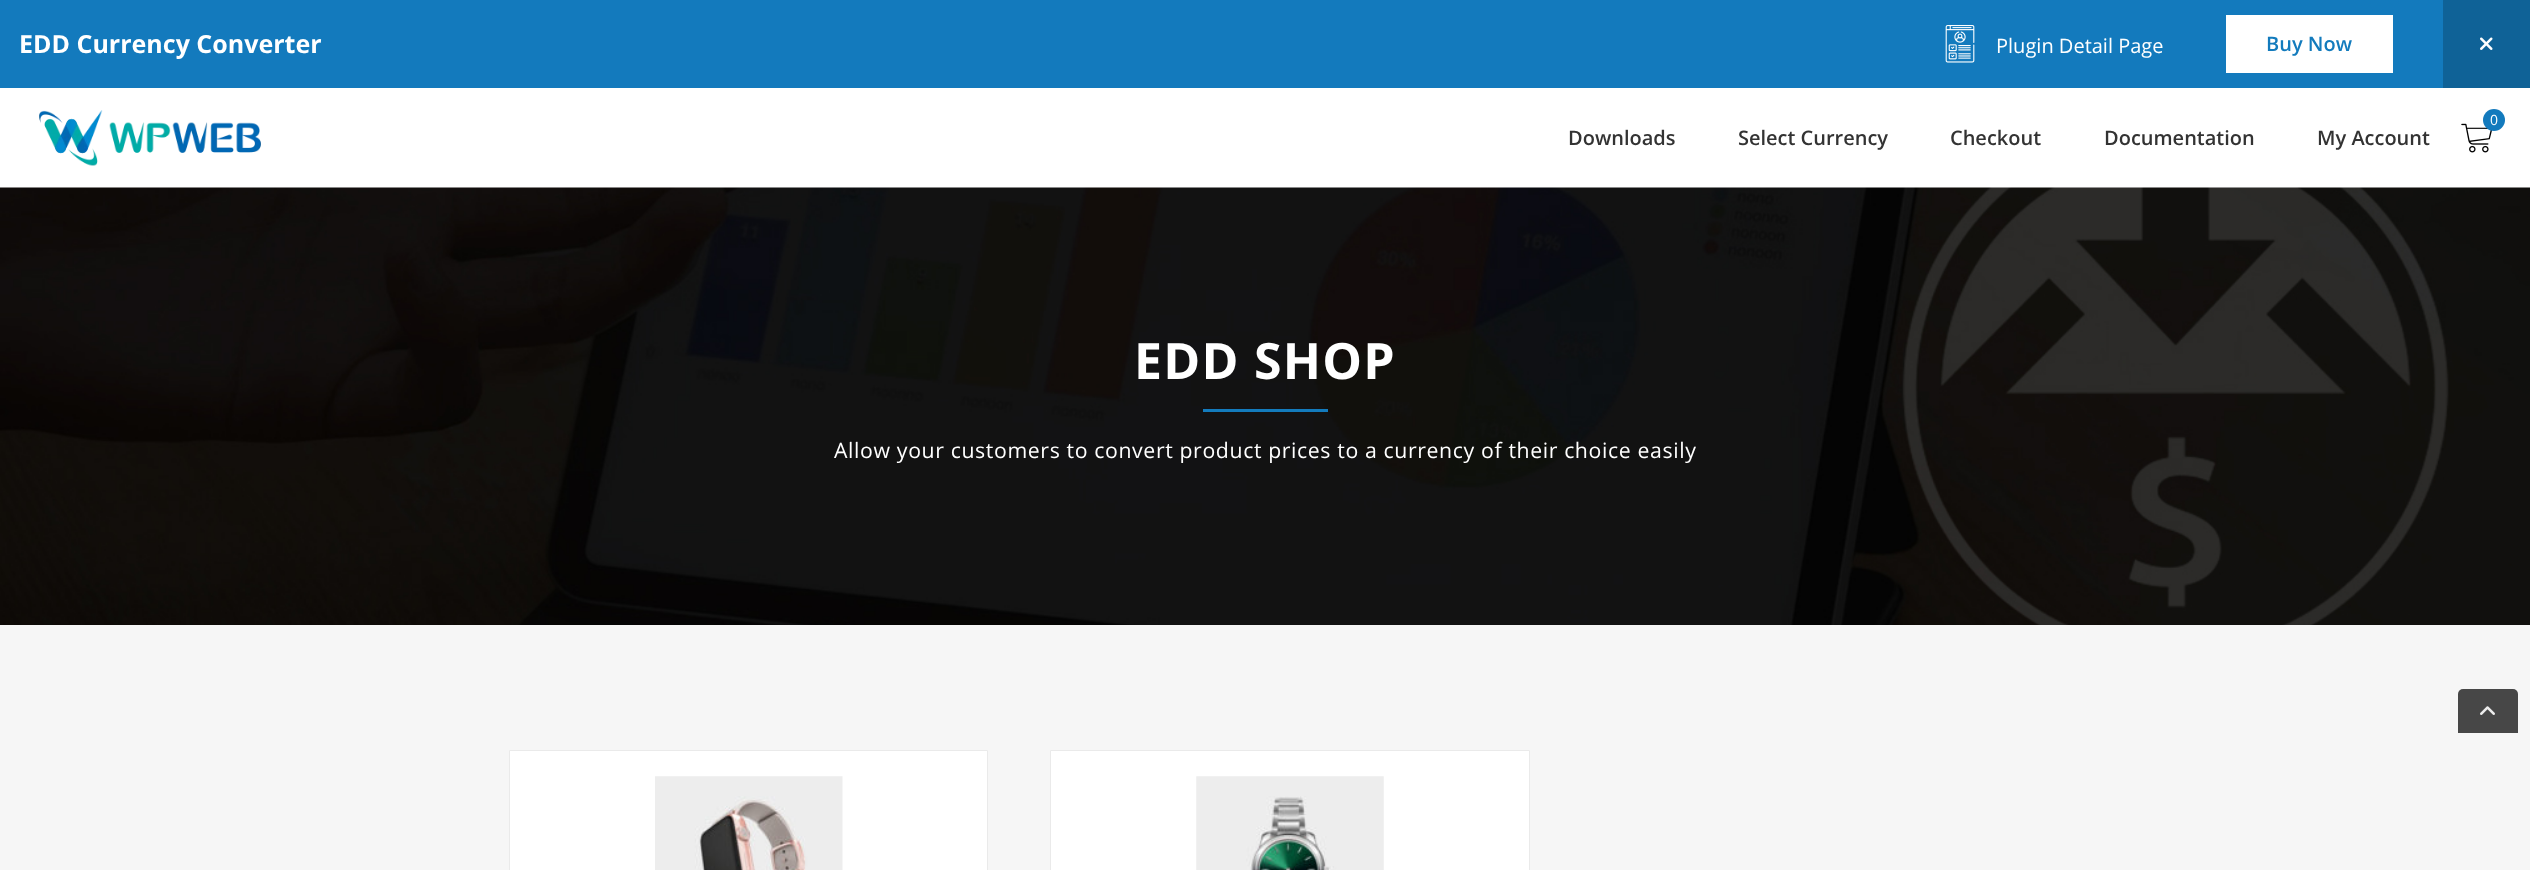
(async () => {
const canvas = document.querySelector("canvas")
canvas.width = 2530
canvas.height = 870
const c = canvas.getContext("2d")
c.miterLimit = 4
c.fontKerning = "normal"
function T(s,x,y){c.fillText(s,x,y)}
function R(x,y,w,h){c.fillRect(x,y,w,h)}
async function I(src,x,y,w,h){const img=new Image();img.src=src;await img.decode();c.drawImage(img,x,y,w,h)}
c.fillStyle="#fff"
R(0,0,2530,870)
c.fillStyle="#137abd"
R(0,0,2443,88)
c.font="bold 25px Open Sans"
c.fillStyle="#fff"
T("EDD Currency Converter",19,53)
await I("1.png",1945,25,30,38)
c.font="20px Open Sans"
T("Plugin Detail Page",1996,53)
R(2226,15,167,58)
c.font="600 20px Open Sans"
c.fillStyle="#137bbd"
T("Buy Now",2266,51)
c.fillStyle="#0f6297"
R(2443,0,87,88)
await I("2.png",2480,37,13,13)
await I("3.png",39,110,222,56)
await I("4.png",2461,123,31,30)
c.fillStyle="#137abd"
c.beginPath()
c.arc(2494,120,11,0,7)
c.fill()
c.font="14px Open Sans"
c.fillStyle="#fff"
T("0",2490,125)
c.font="600 20px Open Sans"
c.fillStyle="#333"
T("Downloads",1568,145)
T("Select Currency",1738,145)
T("Checkout",1950,145)
T("Documentation",2104,145)
T("My Account",2317,145)
await I("5.png",0,187,2530,438)
c.letterSpacing="1.25px"
c.font="bold 50px Open Sans"
c.fillStyle="#fff"
T("EDD SHOP",1134,379)
c.fillStyle="#137bbd"
R(1203,409,125,3)
c.letterSpacing="0.62px"
c.font="21.25px Open Sans"
c.fillStyle="#fff"
T("Allow your customers to convert product prices to a currency of their choice easily",834,458)
c.fillStyle="#f6f6f6"
R(0,625,2530,245)
c.fillStyle="#fff"
c.beginPath()
c.rect(509.5,750.5,478,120)
c.fill()
c.strokeStyle="#eaeaea"
c.stroke()
await I("6.png",655,776,188,94)
c.beginPath()
c.rect(1050.5,750.5,479,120)
c.fill()
c.stroke()
await I("7.png",1196,776,188,94)
c.fillStyle="#474747"
c.beginPath()
c.roundRect(2458,689,60,44,[5,5,0,0])
c.fill()
await I("8.png",2480,706,15,9)
})()
